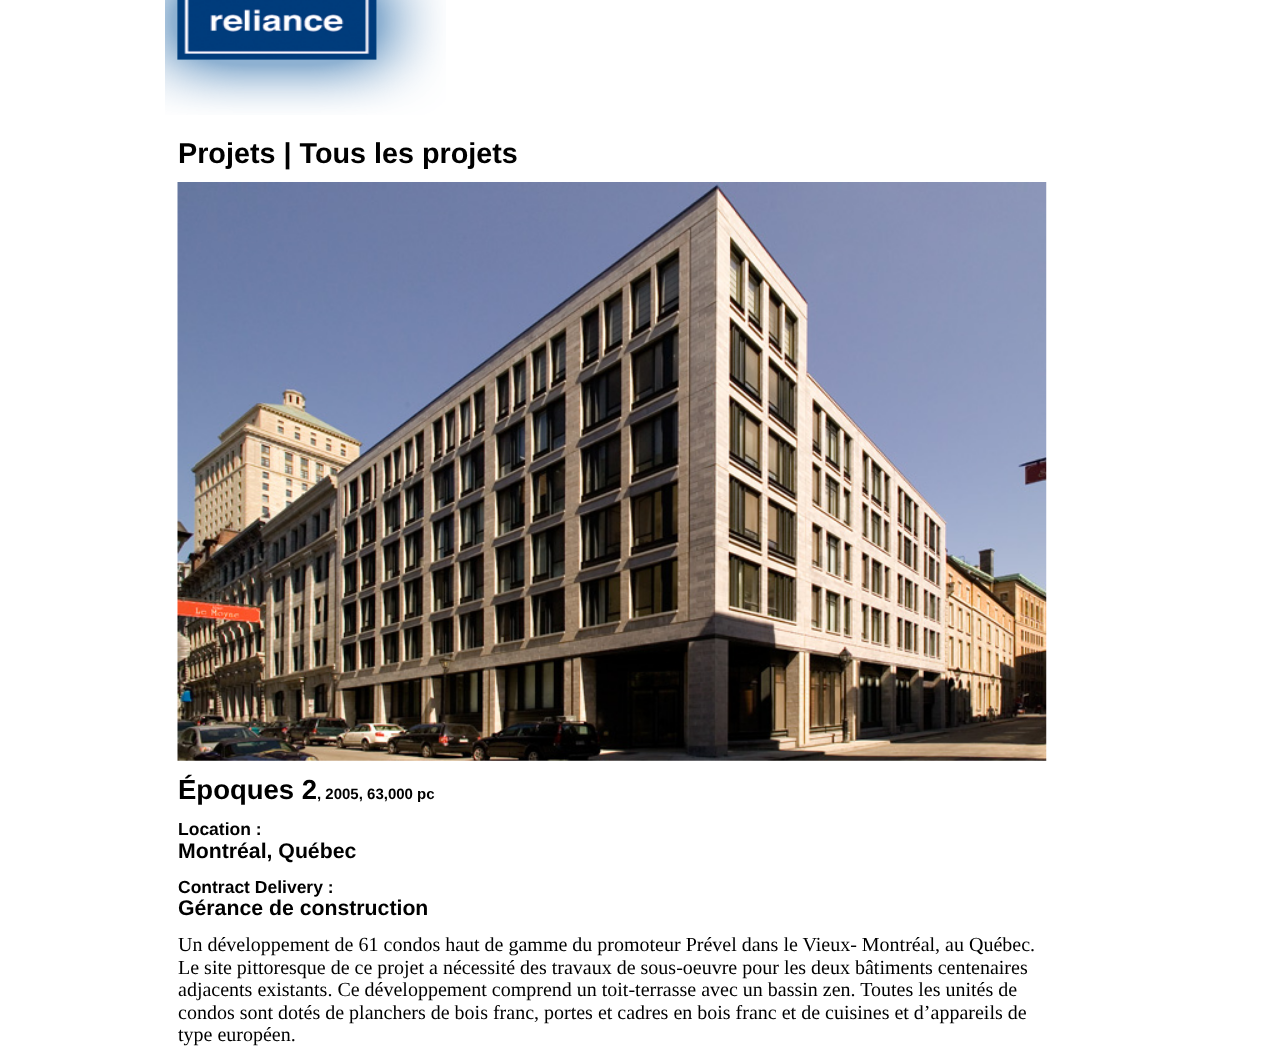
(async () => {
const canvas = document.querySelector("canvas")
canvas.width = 1267
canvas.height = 1057
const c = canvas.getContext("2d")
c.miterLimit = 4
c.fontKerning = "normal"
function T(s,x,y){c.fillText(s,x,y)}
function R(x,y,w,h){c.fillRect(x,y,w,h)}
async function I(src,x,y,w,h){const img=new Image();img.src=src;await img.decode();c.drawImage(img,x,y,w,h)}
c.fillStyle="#fff"
R(0,0,1267,1057)
await I("1.png",165,0,281,115)
c.font="bold 28.75px Liberation Sans"
c.fillStyle="#000"
T("Projets | Tous les projets",178,163)
await I("2.png",177,182,870,579)
c.font="bold 27.5px Liberation Sans"
T("Époques 2",178,799)
c.font="bold 15px Liberation Sans"
T(", 2005, 63,000 pc",317,799)
c.font="bold 17.5px Liberation Sans"
T("Location :",178,835)
c.font="bold 21.25px Liberation Sans"
T("Montréal, Québec",178,858)
c.font="bold 17.5px Liberation Sans"
T("Contract Delivery :",178,893)
c.font="bold 21.25px Liberation Sans"
T("Gérance de construction",178,915)
c.font="20px Liberation Serif"
T("Un développement de 61 condos haut de gamme du promoteur Prével dans le Vieux- Montréal, au Québec.",178,951)
T("Le site pittoresque de ce projet a nécessité des travaux de sous-oeuvre pour les deux bâtiments centenaires",178,974)
T("adjacents existants. Ce développement comprend un toit-terrasse avec un bassin zen. Toutes les unités de",178,996)
T("condos sont dotés de planchers de bois franc, portes et cadres en bois franc et de cuisines et d’appareils de",178,1019)
T("type européen.",178,1041)
})()
